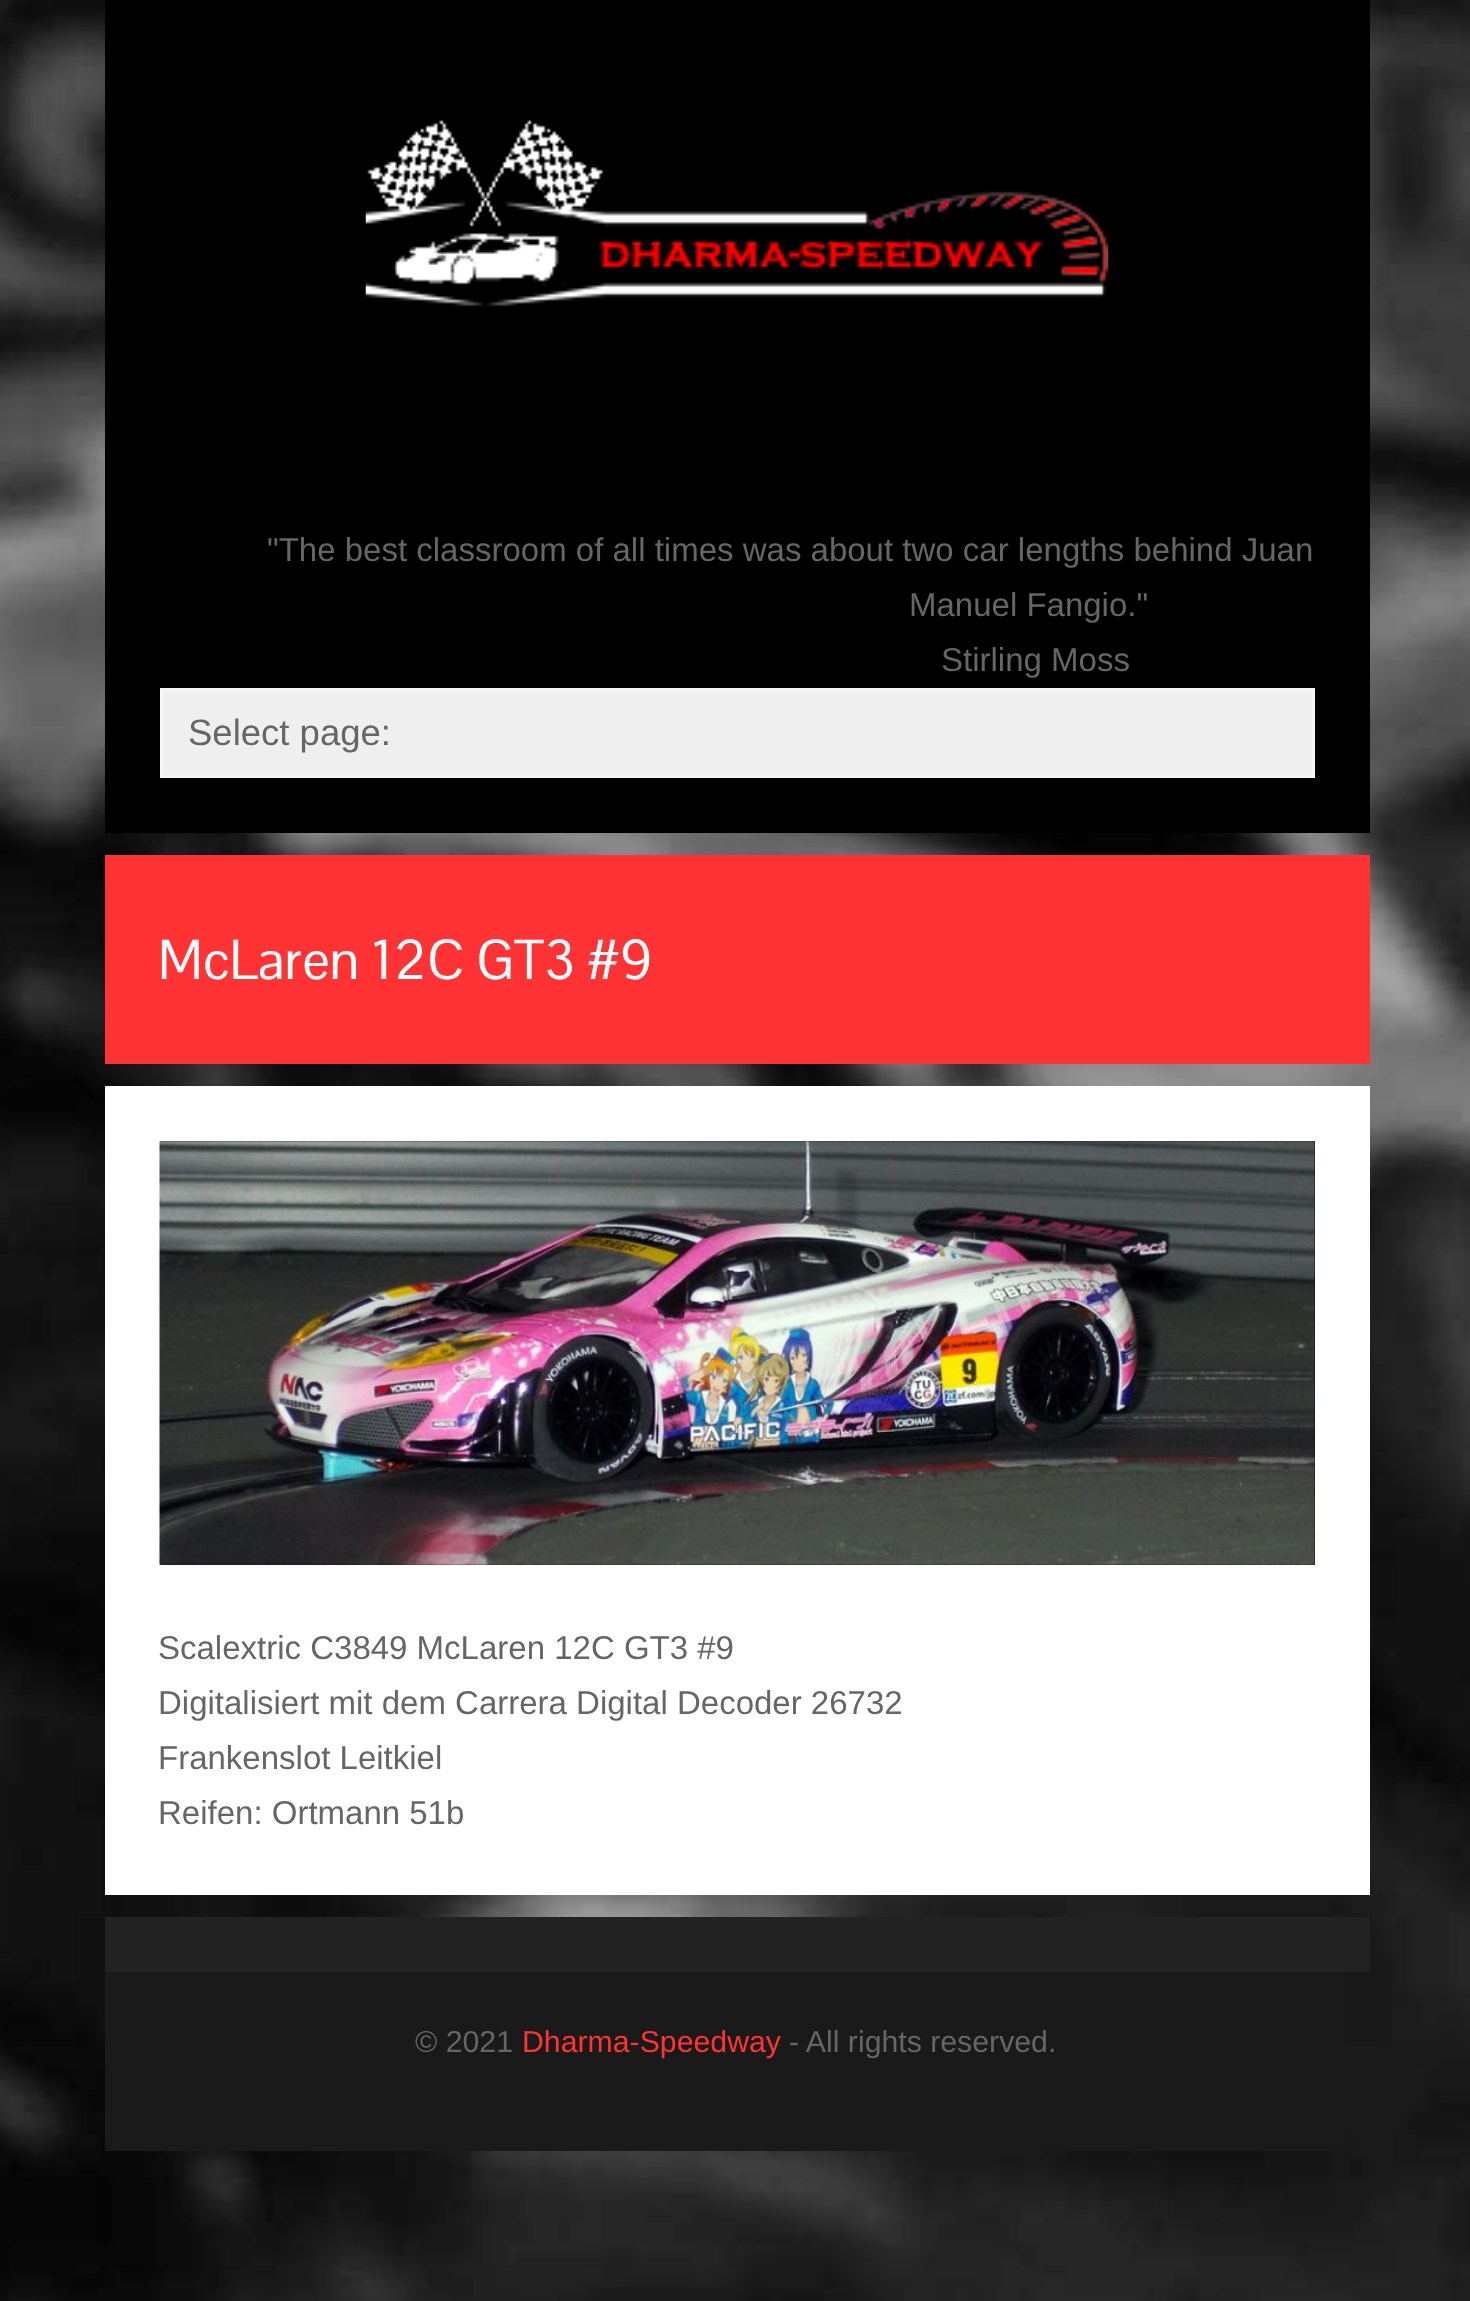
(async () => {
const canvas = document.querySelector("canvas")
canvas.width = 1470
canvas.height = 2301
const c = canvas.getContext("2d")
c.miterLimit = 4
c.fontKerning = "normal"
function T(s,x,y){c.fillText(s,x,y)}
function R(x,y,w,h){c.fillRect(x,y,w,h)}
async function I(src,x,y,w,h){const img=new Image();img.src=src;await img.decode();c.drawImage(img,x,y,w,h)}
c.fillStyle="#fff"
R(0,0,1470,2301)
await I("1.png",0,0,1470,2301)
c.fillStyle="#000"
R(105,0,1265,833)
await I("2.png",365,120,744,187)
c.font="33px Liberation Sans"
c.fillStyle="#666"
T("\"The best classroom of all times was about two car lengths behind Juan",267,561)
T("Manuel Fangio.\"",909,616)
T("Stirling Moss",941,671)
c.fillStyle="#efefef"
c.beginPath()
c.rect(161.5,689.5,1152,87)
c.fill()
c.strokeStyle="#f6f6f6"
c.lineWidth=3
c.stroke()
c.font="36.5px Liberation Sans"
c.fillStyle="#666"
T("Select page:",188,745)
c.fillStyle="#f33"
R(105,855,1265,209)
c.font="55px Pontano Sans"
c.fillStyle="#fff"
T("McLaren 12C GT3 #9",158,979)
R(105,1086,1265,809)
c.fillStyle="#111"
R(160,1141,1155,424)
await I("3.png",159,1141,1156,424)
c.font="33px Liberation Sans"
c.fillStyle="#666"
T("Scalextric C3849 McLaren 12C GT3 #9",158,1659)
T("Digitalisiert mit dem Carrera Digital Decoder 26732",158,1714)
T("Frankenslot Leitkiel",158,1769)
T("Reifen: Ortmann 51b",158,1824)
c.fillStyle="#222"
R(105,1917,1265,55)
c.fillStyle="#1a1a1a"
R(105,1972,1244,179)
c.font="30.25px Liberation Sans"
c.fillStyle="#666"
T("© 2021",415,2052)
c.fillStyle="#f33"
T("Dharma-Speedway",522,2052)
c.fillStyle="#666"
T("- All rights reserved.",789,2052)
})()
